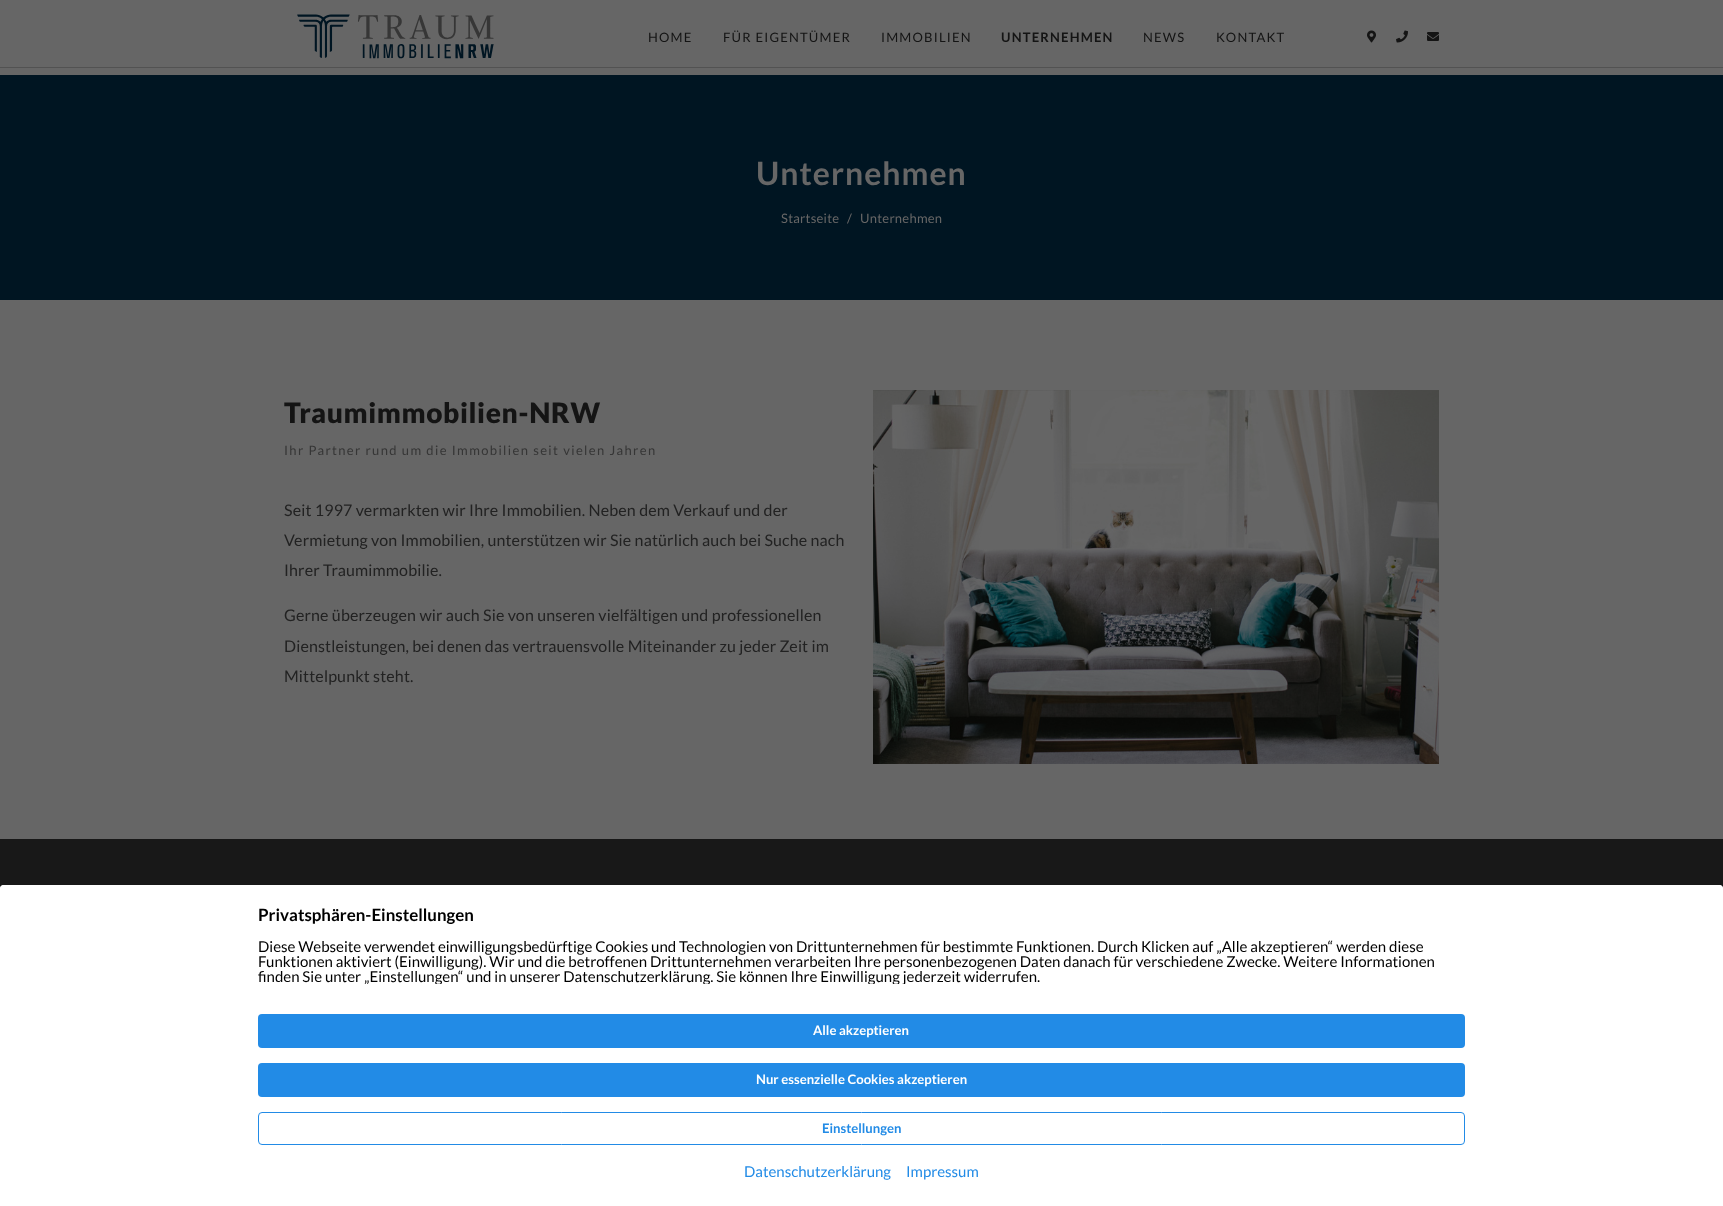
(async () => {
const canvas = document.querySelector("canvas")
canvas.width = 1723
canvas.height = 1206
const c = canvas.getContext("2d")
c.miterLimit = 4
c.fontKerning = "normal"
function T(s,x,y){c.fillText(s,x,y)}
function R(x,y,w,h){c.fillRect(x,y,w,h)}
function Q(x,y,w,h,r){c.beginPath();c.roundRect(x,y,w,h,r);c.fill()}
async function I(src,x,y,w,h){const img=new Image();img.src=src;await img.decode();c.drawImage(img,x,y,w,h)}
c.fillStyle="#666"
R(0,0,1723,1206)
c.fillStyle="#525252"
R(0,67,1723,1)
await I("1.png",297,14,197,45)
c.letterSpacing="1.2px"
c.font="13px Lato"
c.fillStyle="#141414"
T("HOME",648,42)
T("FÜR EIGENTÜMER",723,42)
T("IMMOBILIEN",881,42)
c.font="bold 13px Lato"
T("UNTERNEHMEN",1001,42)
c.font="13px Lato"
T("NEWS",1143,42)
T("KONTAKT",1216,42)
await I("2.png",1367,30,9,13)
await I("3.png",1396,30,12,13)
await I("4.png",1427,32,12,9)
c.fillStyle="#001522"
R(0,75,1723,225)
c.letterSpacing="1px"
c.font="bold 32px Lato"
c.fillStyle="#666"
T("Unternehmen",756,185)
c.letterSpacing="0.25px"
c.font="13px Lato"
T("Startseite",781,223)
T("/",847,223)
T("Unternehmen",860,223)
c.letterSpacing="0.6px"
c.font="900 28px Lato"
c.fillStyle="#141414"
T("Traumimmobilien-NRW",284,423)
c.letterSpacing="1.37px"
c.font="13px Lato"
c.fillStyle="#363636"
T("Ihr Partner rund um die Immobilien seit vielen Jahren",284,455)
c.letterSpacing="0.15px"
c.font="16px Lato"
c.fillStyle="#222"
T("Seit 1997 vermarkten wir Ihre Immobilien. Neben dem Verkauf und der",284,516)
T("Vermietung von Immobilien, unterstützen wir Sie natürlich auch bei Suche nach",284,546)
T("Ihrer Traumimmobilie.",284,576)
T("Gerne überzeugen wir auch Sie von unseren vielfältigen und professionellen",284,621)
T("Dienstleistungen, bei denen das vertrauensvolle Miteinander zu jeder Zeit im",284,652)
T("Mittelpunkt steht.",284,682)
await I("5.png",873,390,566,374)
c.fillStyle="#181818"
R(0,839,1723,50)
c.fillStyle="#fff"
c.beginPath()
c.roundRect(0,885,1723,321,[4,4,0,0])
c.fill()
Q(0,885,1723,321,4)
c.letterSpacing="0px"
c.font="bold 16.9px Lato"
c.fillStyle="#000"
T("Privatsphären-Einstellungen",258,921)
c.font="15px Lato"
T("Diese Webseite verwendet einwilligungsbedürftige Cookies und Technologien von Drittunternehmen für bestimmte Funktionen. Durch Klicken auf „Alle akzeptieren“ werden diese",258,952)
T("Funktionen aktiviert (Einwilligung). Wir und die betroffenen Drittunternehmen verarbeiten Ihre personenbezogenen Daten danach für verschiedene Zwecke. Weitere Informationen",258,967)
c.save()
c.beginPath()
c.rect(258,939,1207,45)
c.clip()
T("finden Sie unter „Einstellungen“ und in unserer Datenschutzerklärung. Sie können Ihre Einwilligung jederzeit widerrufen.",258,982)
c.restore()
c.fillStyle="#228be6"
Q(258,1014,1207,34,4)
c.font="bold 13.1px Lato"
c.fillStyle="#fff"
T("Alle akzeptieren",813,1035)
c.fillStyle="#228be6"
Q(258,1063,1207,34,4)
c.fillStyle="#fff"
T("Nur essenzielle Cookies akzeptieren",756,1084)
c.beginPath()
c.roundRect(258.5,1112.5,1206,32,3.5)
c.strokeStyle="#228be6"
c.stroke()
c.fillStyle="#228be6"
T("Einstellungen",822,1133)
c.font="15px Lato"
T("Datenschutzerklärung",744,1177)
T("Impressum",906,1177)
})()
